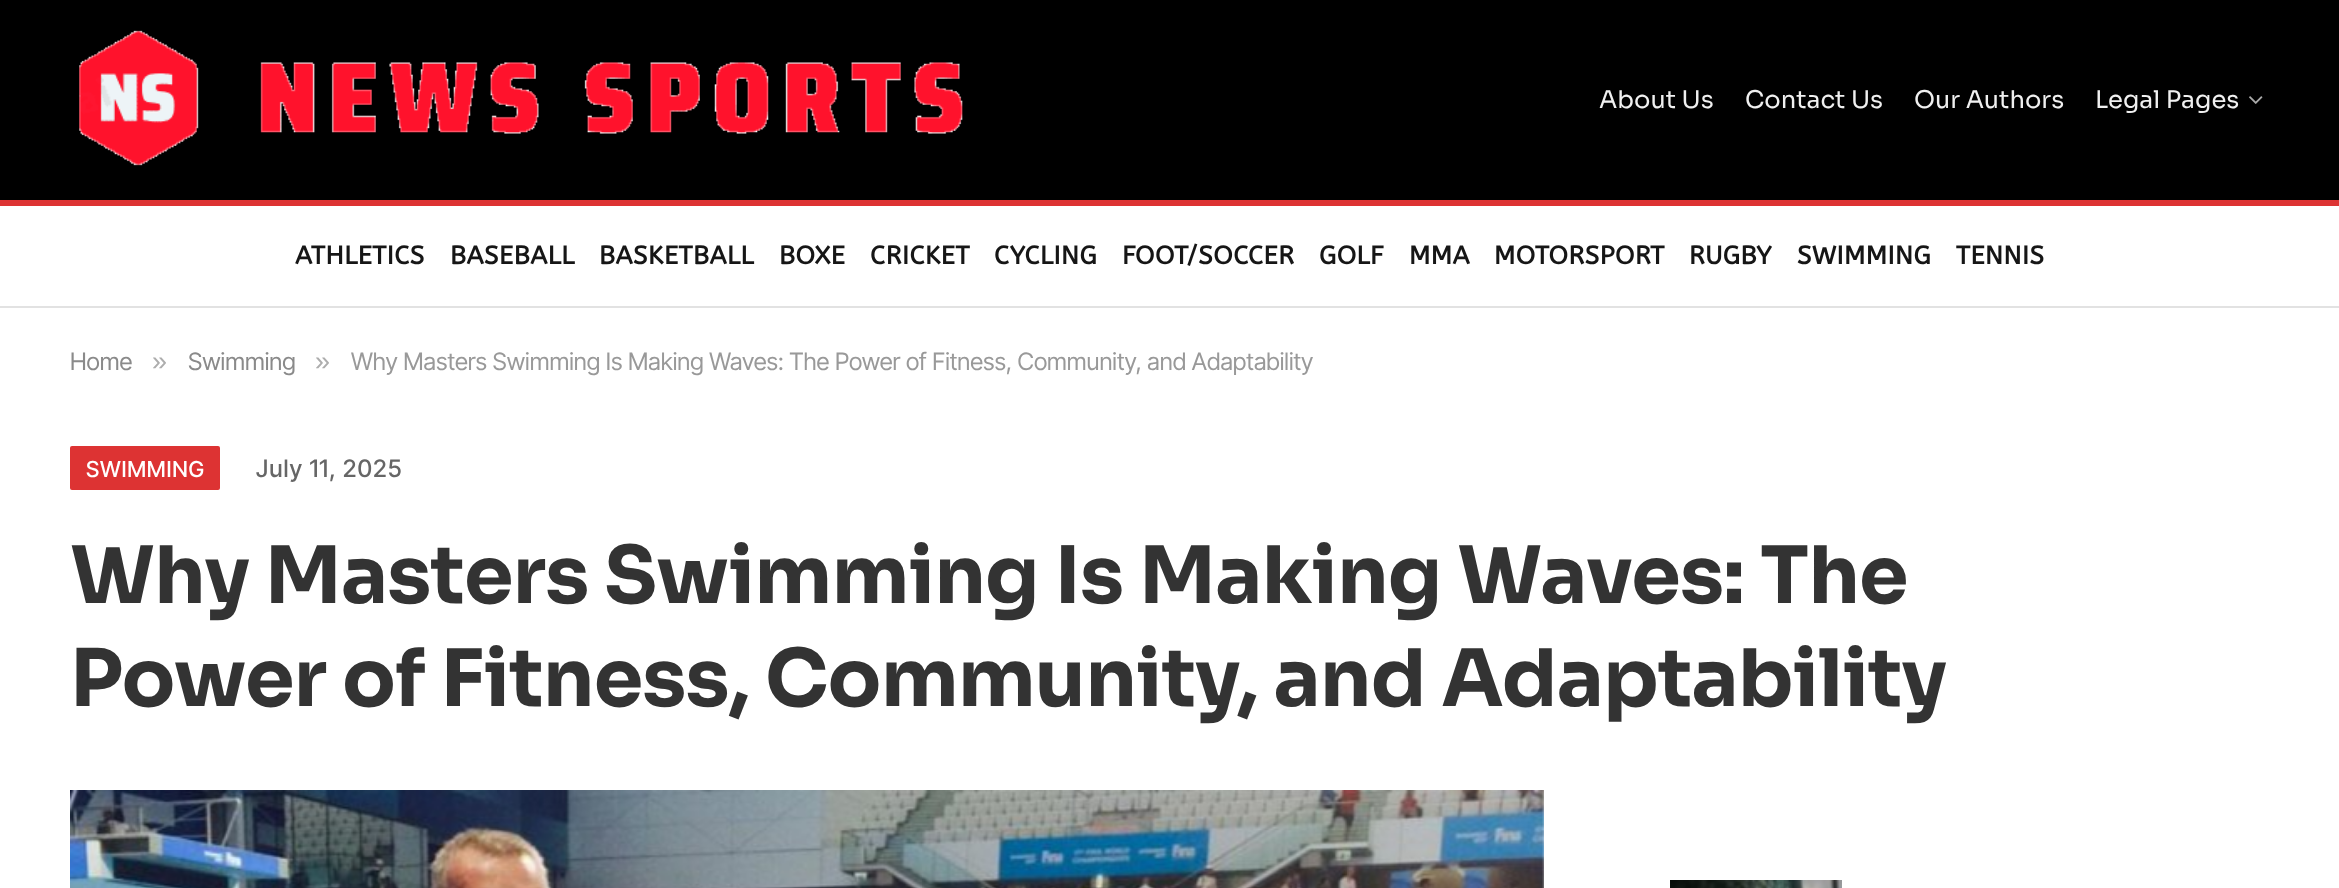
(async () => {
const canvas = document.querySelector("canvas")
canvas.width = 2339
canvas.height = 888
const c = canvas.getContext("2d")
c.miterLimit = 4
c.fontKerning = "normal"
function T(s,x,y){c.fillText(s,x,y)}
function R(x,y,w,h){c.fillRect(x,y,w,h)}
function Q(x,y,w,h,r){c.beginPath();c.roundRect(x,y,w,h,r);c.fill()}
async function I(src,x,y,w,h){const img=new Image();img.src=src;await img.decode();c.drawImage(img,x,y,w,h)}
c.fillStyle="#fff"
R(0,0,2339,888)
c.fillStyle="#000"
R(0,0,2339,200)
await I("1.png",79,30,884,136)
c.font="24.25px Sora"
c.fillStyle="#f0f0f0"
T("About Us",1599,108)
T("Contact Us",1745,108)
T("Our Authors",1914,108)
T("Legal Pages",2095,108)
await I("2.png",2249,96,14,8)
c.fillStyle="#d33"
R(0,200,2339,6)
c.fillStyle="#e2e2e2"
R(0,306,2339,2)
c.letterSpacing="0.5px"
c.font="bold 25.5px ABeeZee"
c.fillStyle="#161616"
T("ATHLETICS",295,264)
T("BASEBALL",450,264)
T("BASKETBALL",599,264)
T("BOXE",779,264)
T("CRICKET",870,264)
T("CYCLING",994,264)
T("FOOT/SOCCER",1122,264)
T("GOLF",1319,264)
T("MMA",1409,264)
T("MOTORSPORT",1494,264)
T("RUGBY",1689,264)
T("SWIMMING",1797,264)
T("TENNIS",1956,264)
c.letterSpacing="0px"
c.font="24px Inter Tight"
c.fillStyle="#8a8a8a"
T("Home",70,370)
c.font="27px Liberation Sans"
c.fillStyle="#adadad"
T("»",152,370)
c.font="24px Inter Tight"
c.fillStyle="#8a8a8a"
T("Swimming",188,370)
c.font="27px Liberation Sans"
c.fillStyle="#adadad"
T("»",315,370)
c.font="24px Inter Tight"
c.fillStyle="#999"
T("Why Masters Swimming Is Making Waves: The Power of Fitness, Community, and Adaptability",351,370)
c.fillStyle="#d33"
Q(70,446,150,44,2)
c.letterSpacing="0.75px"
c.font="500 22px Inter Tight"
c.fillStyle="#fff"
T("SWIMMING",86,477)
c.letterSpacing="1px"
c.font="500 24px Inter Tight"
c.fillStyle="#666"
T("July 11, 2025",256,477)
c.letterSpacing="-0.8px"
c.font="bold 79.25px Sora"
c.fillStyle="#333"
T("Why Masters Swimming Is Making Waves: The",70,603)
T("Power of Fitness, Community, and Adaptability",70,706)
await I("3.png",70,790,1474,98)
await I("4.png",1670,880,172,8)
})()
